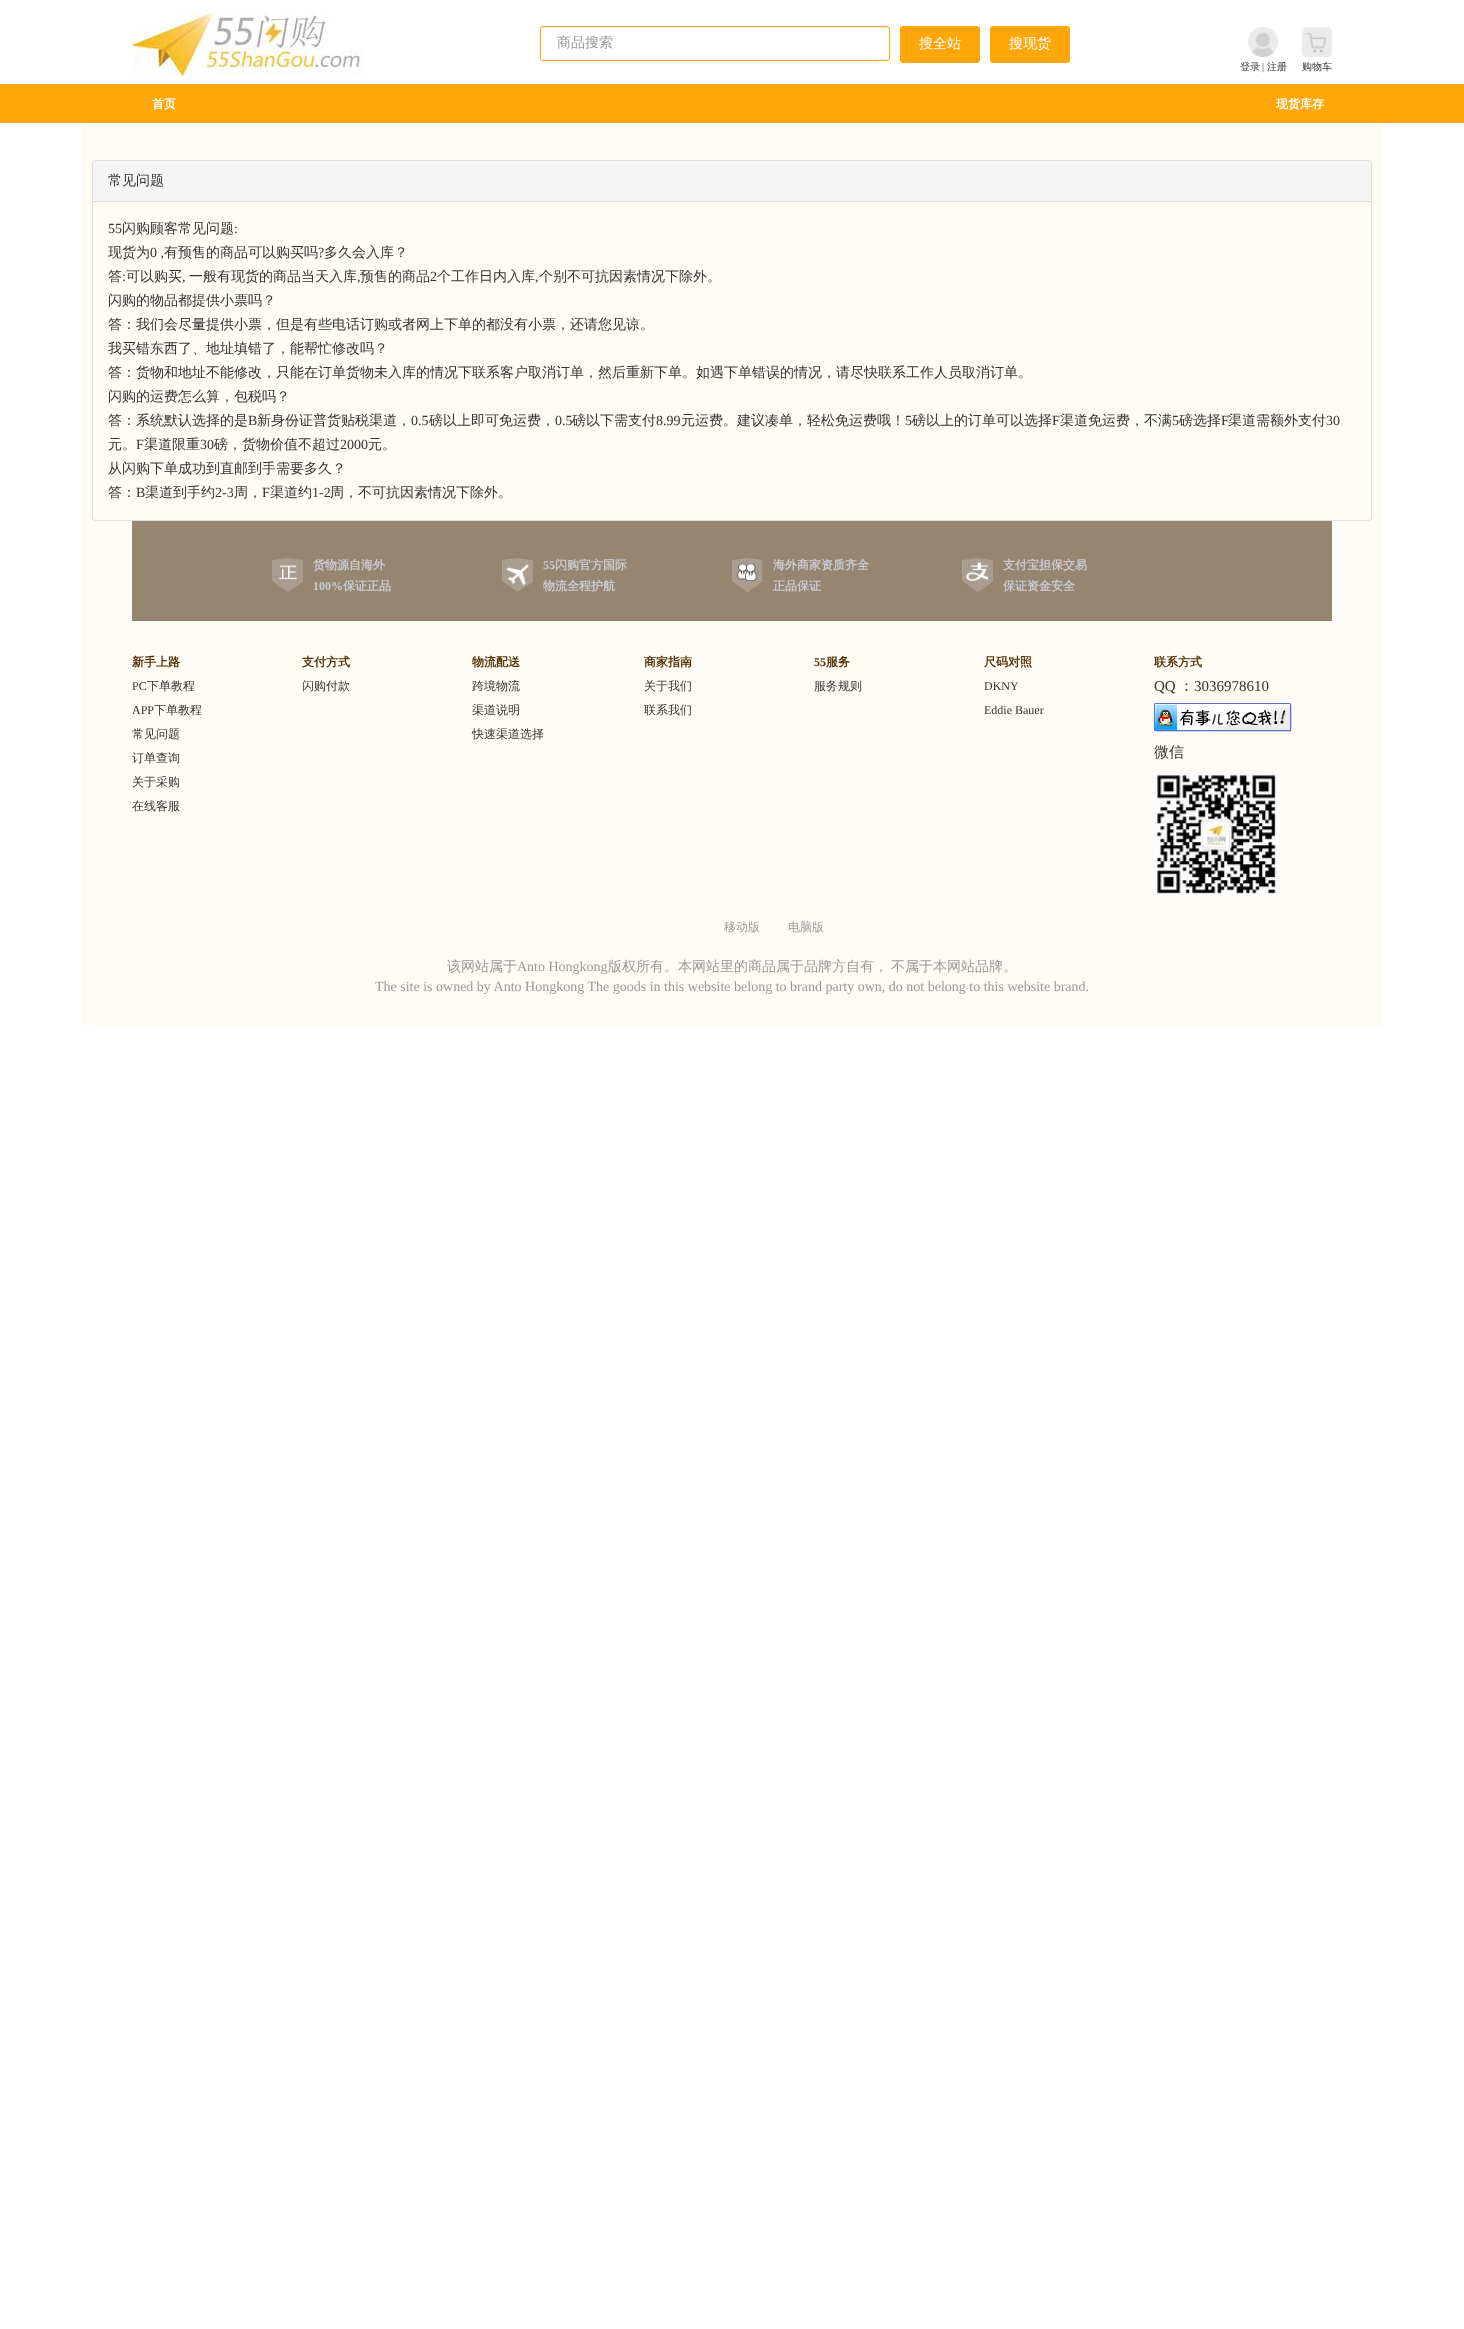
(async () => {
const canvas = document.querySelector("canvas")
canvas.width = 1464
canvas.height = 2329
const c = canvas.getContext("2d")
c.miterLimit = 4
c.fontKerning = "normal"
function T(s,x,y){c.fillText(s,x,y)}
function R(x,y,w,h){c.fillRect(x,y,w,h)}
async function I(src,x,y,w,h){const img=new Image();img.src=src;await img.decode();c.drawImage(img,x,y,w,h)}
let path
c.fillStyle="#fff"
R(0,0,1464,2329)
c.fillStyle="#fffcf5"
R(82,123,1300,903)
await I("1.png",132,10,232,68)
c.fillStyle="#ececec"
path = new Path2D("M543 28h344c1 0 2 1 2 2c0-1 0-3-2-3h-344l-2 1v2c0-1 1-2 2-2z")
c.fill(path)
c.beginPath()
c.roundRect(540.5,26.5,349,34,2.5)
c.strokeStyle="#ffa60a"
c.stroke()
c.font="500 14px WenQuanYi Zen Hei"
c.fillStyle="#99999b"
T("商品搜索",557,47)
c.fillStyle="#ffa60a"
c.beginPath()
c.roundRect(900.5,26.5,79,36,2.5)
c.fill()
c.stroke()
c.fillStyle="#fff"
T("搜全站",919,48)
c.fillStyle="#ffa60a"
c.beginPath()
c.roundRect(990.5,26.5,79,36,2.5)
c.fill()
c.stroke()
c.fillStyle="#fff"
T("搜现货",1009,48)
await I("2.png",1248,27,30,30)
c.font="500 10px WenQuanYi Zen Hei"
c.fillStyle="#333"
T("登录",1240,70)
c.font="10px Liberation Serif"
T("|",1262,70)
c.font="500 10px WenQuanYi Zen Hei"
T("注册",1267,70)
await I("3.png",1302,27,30,30)
T("购物车",1302,70)
c.fillStyle="#ffa60a"
R(0,84,1464,39)
c.font="bold 12px WenQuanYi Zen Hei"
c.fillStyle="#fff"
T("首页",152,108)
T("现货库存",1276,108)
c.beginPath()
c.roundRect(92.5,160.5,1279,360,3.5)
c.strokeStyle="#ddd"
c.stroke()
c.fillStyle="#f5f5f5"
c.beginPath()
c.roundRect(93,161,1278,41,[4,4,0,0])
c.fill()
c.fillStyle="#ddd"
R(93,201,1278,1)
c.font="500 14px WenQuanYi Zen Hei"
c.fillStyle="#333"
T("常见问题",108,185)
c.font="14px Liberation Serif"
T("55",108,233)
c.font="500 14px WenQuanYi Zen Hei"
T("闪购顾客常见问题",122,233)
c.font="14px Liberation Serif"
T(":",234,233)
c.font="500 14px WenQuanYi Zen Hei"
T("现货为",108,257)
c.font="14px Liberation Serif"
T("0 ,",150,257)
c.font="500 14px WenQuanYi Zen Hei"
T("有预售的商品可以购买吗",164,257)
c.font="14px Liberation Serif"
T("?",318,257)
c.font="500 14px WenQuanYi Zen Hei"
T("多久会入库？",324,257)
T("答",108,281)
c.font="14px Liberation Serif"
T(":",122,281)
c.font="500 14px WenQuanYi Zen Hei"
T("可以购买",126,281)
c.font="14px Liberation Serif"
T(",",182,281)
c.font="500 14px WenQuanYi Zen Hei"
T("一般有现货的商品当天入库",189,281)
c.font="14px Liberation Serif"
T(",",357,281)
c.font="500 14px WenQuanYi Zen Hei"
T("预售的商品",360,281)
c.font="14px Liberation Serif"
T("2",430,281)
c.font="500 14px WenQuanYi Zen Hei"
T("个工作日内入库",437,281)
c.font="14px Liberation Serif"
T(",",535,281)
c.font="500 14px WenQuanYi Zen Hei"
T("个别不可抗因素情况下除外。",539,281)
T("闪购的物品都提供小票吗？",108,305)
T("答：我们会尽量提供小票，但是有些电话订购或者网上下单的都没有小票，还请您见谅。",108,329)
T("我买错东西了、地址填错了，能帮忙修改吗？",108,353)
T("答：货物和地址不能修改，只能在订单货物未入库的情况下联系客户取消订单，然后重新下单。如遇下单错误的情况，请尽快联系工作人员取消订单。",108,377)
T("闪购的运费怎么算，包税吗？",108,401)
T("答：系统默认选择的是",108,425)
c.font="14px Liberation Serif"
T("B",248,425)
c.font="500 14px WenQuanYi Zen Hei"
T("新身份证普货贴税渠道，",257,425)
c.font="14px Liberation Serif"
T("0.5",411,425)
c.font="500 14px WenQuanYi Zen Hei"
T("磅以上即可免运费，",429,425)
c.font="14px Liberation Serif"
T("0.5",555,425)
c.font="500 14px WenQuanYi Zen Hei"
T("磅以下需支付",572,425)
c.font="14px Liberation Serif"
T("8.99",656,425)
c.font="500 14px WenQuanYi Zen Hei"
T("元运费。建议凑单，轻松免运费哦！",681,425)
c.font="14px Liberation Serif"
T("5",905,425)
c.font="500 14px WenQuanYi Zen Hei"
T("磅以上的订单可以选择",912,425)
c.font="14px Liberation Serif"
T("F",1052,425)
c.font="500 14px WenQuanYi Zen Hei"
T("渠道免运费，不满",1060,425)
c.font="14px Liberation Serif"
T("5",1172,425)
c.font="500 14px WenQuanYi Zen Hei"
T("磅选择",1179,425)
c.font="14px Liberation Serif"
T("F",1221,425)
c.font="500 14px WenQuanYi Zen Hei"
T("渠道需额外支付",1228,425)
c.font="14px Liberation Serif"
T("30",1326,425)
c.font="500 14px WenQuanYi Zen Hei"
T("元。",108,449)
c.font="14px Liberation Serif"
T("F",136,449)
c.font="500 14px WenQuanYi Zen Hei"
T("渠道限重",144,449)
c.font="14px Liberation Serif"
T("30",200,449)
c.font="500 14px WenQuanYi Zen Hei"
T("磅，货物价值不超过",214,449)
c.font="14px Liberation Serif"
T("2000",340,449)
c.font="500 14px WenQuanYi Zen Hei"
T("元。",368,449)
T("从闪购下单成功到直邮到手需要多久？",108,473)
T("答：",108,497)
c.font="14px Liberation Serif"
T("B",136,497)
c.font="500 14px WenQuanYi Zen Hei"
T("渠道到手约",145,497)
c.font="14px Liberation Serif"
T("2-3",215,497)
c.font="500 14px WenQuanYi Zen Hei"
T("周，",234,497)
c.font="14px Liberation Serif"
T("F",262,497)
c.font="500 14px WenQuanYi Zen Hei"
T("渠道约",270,497)
c.font="14px Liberation Serif"
T("1-2",312,497)
c.font="500 14px WenQuanYi Zen Hei"
T("周，不可抗因素情况下除外。",330,497)
c.fillStyle="#968571"
R(132,521,1200,100)
await I("4.png",272,558,31,34)
c.font="bold 12px WenQuanYi Zen Hei"
c.fillStyle="#cacbd0"
T("货物源自海外",313,569)
c.font="bold 12px Liberation Serif"
T("100%",313,590)
c.font="bold 12px WenQuanYi Zen Hei"
T("保证正品",343,590)
await I("5.png",502,558,31,34)
c.font="bold 12px Liberation Serif"
T("55",543,569)
c.font="bold 12px WenQuanYi Zen Hei"
T("闪购官方国际",555,569)
T("物流全程护航",543,590)
await I("6.png",732,558,31,34)
T("海外商家资质齐全",773,569)
T("正品保证",773,590)
await I("7.png",962,558,31,34)
T("支付宝担保交易",1003,569)
T("保证资金安全",1003,590)
c.fillStyle="#523002"
T("新手上路",132,666)
c.font="12px Liberation Serif"
c.fillStyle="#333"
T("PC",132,690)
c.font="500 12px WenQuanYi Zen Hei"
T("下单教程",147,690)
c.font="12px Liberation Serif"
T("APP",132,714)
c.font="500 12px WenQuanYi Zen Hei"
T("下单教程",154,714)
T("常见问题",132,738)
T("订单查询",132,762)
T("关于采购",132,786)
T("在线客服",132,810)
c.font="bold 12px WenQuanYi Zen Hei"
c.fillStyle="#523002"
T("支付方式",302,666)
c.font="500 12px WenQuanYi Zen Hei"
c.fillStyle="#333"
T("闪购付款",302,690)
c.font="bold 12px WenQuanYi Zen Hei"
c.fillStyle="#523002"
T("物流配送",472,666)
c.font="500 12px WenQuanYi Zen Hei"
c.fillStyle="#333"
T("跨境物流",472,690)
T("渠道说明",472,714)
T("快速渠道选择",472,738)
c.font="bold 12px WenQuanYi Zen Hei"
c.fillStyle="#523002"
T("商家指南",644,666)
c.font="500 12px WenQuanYi Zen Hei"
c.fillStyle="#333"
T("关于我们",644,690)
T("联系我们",644,714)
c.font="bold 12px Liberation Serif"
c.fillStyle="#523002"
T("55",814,666)
c.font="bold 12px WenQuanYi Zen Hei"
T("服务",826,666)
c.font="500 12px WenQuanYi Zen Hei"
c.fillStyle="#333"
T("服务规则",814,690)
c.font="bold 12px WenQuanYi Zen Hei"
c.fillStyle="#523002"
T("尺码对照",984,666)
c.font="12px Liberation Serif"
c.fillStyle="#333"
T("DKNY",984,690)
T("Eddie Bauer",984,714)
c.font="bold 12px WenQuanYi Zen Hei"
c.fillStyle="#523002"
T("联系方式",1154,666)
c.font="15px Liberation Serif"
c.fillStyle="#333"
T("QQ",1154,691)
c.font="500 15px WenQuanYi Zen Hei"
T("：",1179,691)
c.font="15px Liberation Serif"
T("3036978610",1194,691)
await I("8.png",1154,703,138,29)
c.font="500 15px WenQuanYi Zen Hei"
T("微信",1154,757)
await I("9.png",1154,772,125,125)
c.font="500 12px WenQuanYi Zen Hei"
c.fillStyle="#99999b"
T("移动版",724,931)
T("电脑版",788,931)
c.font="500 14px WenQuanYi Zen Hei"
T("该网站属于",447,971)
c.font="14px Liberation Serif"
T("Anto Hongkong",517,971)
c.font="500 14px WenQuanYi Zen Hei"
T("版权所有。本网站里的商品属于品牌方自有，",608,971)
T("不属于本网站品牌。",891,971)
c.font="14px Liberation Serif"
T("The site is owned by Anto Hongkong The goods in this website belong to brand party own, do not belong to this website brand.",375,991)
})()
